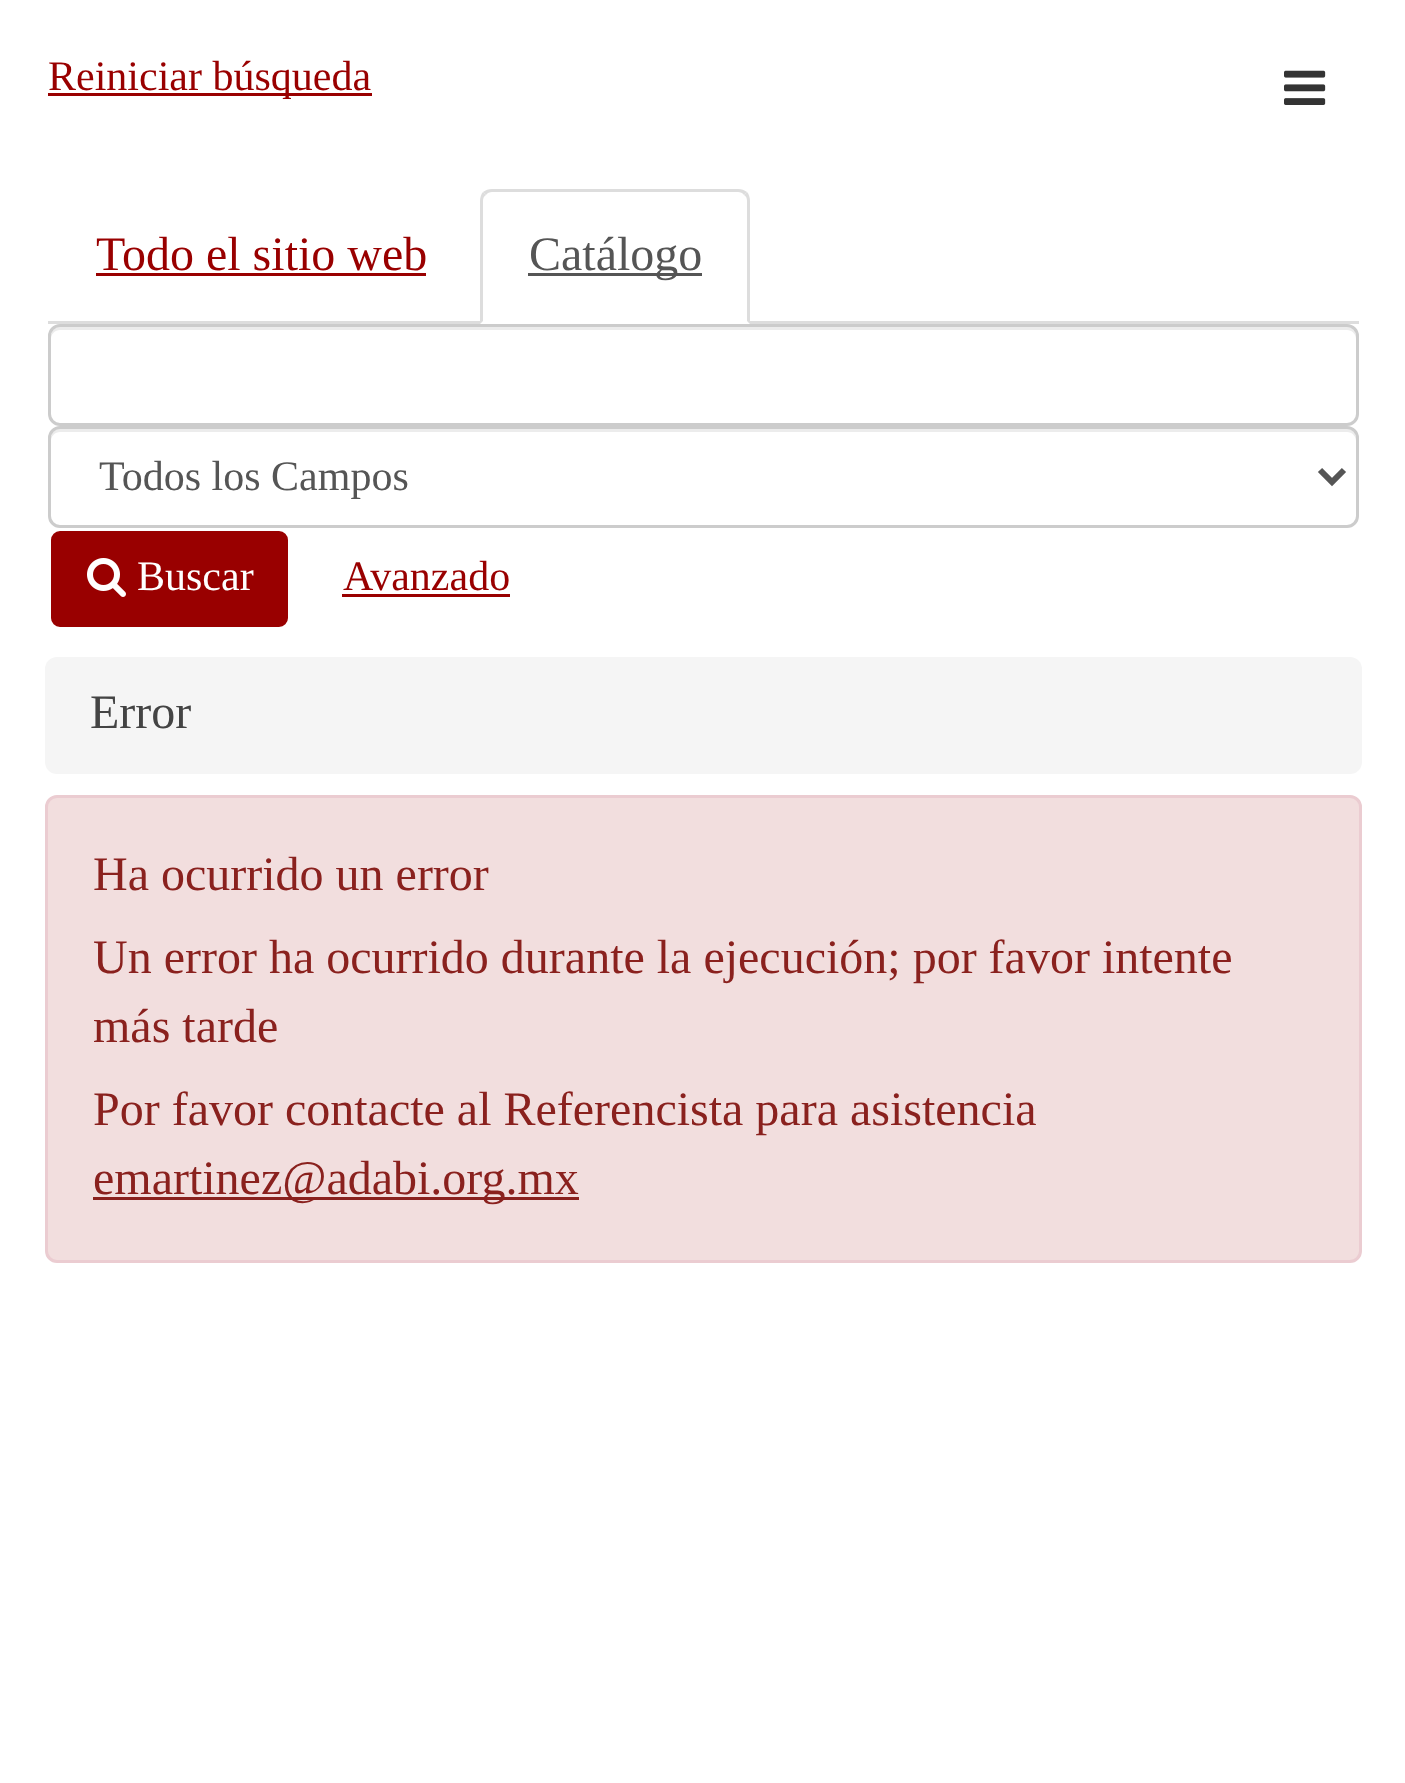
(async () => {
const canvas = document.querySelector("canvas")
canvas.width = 1405
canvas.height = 1783
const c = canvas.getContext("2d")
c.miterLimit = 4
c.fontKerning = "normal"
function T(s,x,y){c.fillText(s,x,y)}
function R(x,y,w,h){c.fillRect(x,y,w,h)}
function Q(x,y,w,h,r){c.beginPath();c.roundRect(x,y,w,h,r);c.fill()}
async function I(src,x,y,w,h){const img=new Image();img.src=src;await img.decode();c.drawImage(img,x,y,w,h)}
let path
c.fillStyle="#fff"
R(0,0,1405,1783)
c.fillStyle="#900"
R(48,93,324,3)
c.font="42px Liberation Serif"
T("Reiniciar búsqueda",48,90)
await I("1.png",1284,70,42,35)
c.fillStyle="#ddd"
R(48,321,1311,3)
c.font="48px Liberation Serif"
c.fillStyle="#900"
T("Todo el sitio web",96,270)
R(96,273,330,3)
c.fillStyle="#fff"
c.beginPath()
c.roundRect(480,189,270,135,[12,12,0,0])
c.fill()
c.fillStyle="#ddd"
path = new Path2D("M492 189c-4 0-6 1-9 3l3 3c1-2 4-3 6-3h246c2 0 5 1 6 3l3-3c-3-2-5-3-9-3z")
c.fill(path)
path = new Path2D("M750 324v-123c0-3-1-7-3-9l-3 3c2 1 3 3 3 6v120z")
c.fill(path)
path = new Path2D("M480 324l3-3v-120c0-3 1-5 3-6l-3-3c-2 2-3 6-3 9z")
c.fill(path)
c.fillStyle="#555"
R(528,273,174,3)
T("Catálogo",529,270)
c.fillStyle="#ececec"
path = new Path2D("M60 330h1287c5 0 9 4 9 9v-3c0-5-4-9-9-9h-1287c-5 0-9 4-9 9v3c0-5 4-9 9-9z")
c.fill(path)
c.beginPath()
c.roundRect(49.5,325.5,1308,99,10.5)
c.strokeStyle="#ccc"
c.lineWidth=3
c.stroke()
path = new Path2D("M60 432h1287c5 0 9 4 9 9v-3c0-5-4-9-9-9h-1287c-5 0-9 4-9 9v3c0-5 4-9 9-9z")
c.fill(path)
c.beginPath()
c.roundRect(49.5,427.5,1308,99,10.5)
c.stroke()
path = new Path2D("M1320 470l12 12l12-12")
c.strokeStyle="#555"
c.lineWidth=6
c.stroke(path)
c.font="42px Liberation Serif"
c.fillStyle="#555"
T("Todos los Campos",99,490)
c.fillStyle="#900"
c.beginPath()
c.roundRect(49.5,529.5,240,99,10.5)
c.fill()
c.strokeStyle="#fff"
c.lineWidth=3
c.stroke()
await I("2.png",87,558,39,39)
c.fillStyle="#fff"
T("Buscar",137,590)
c.fillStyle="#900"
T("Avanzado",343,590)
R(342,594,168,3)
c.fillStyle="#f5f5f5"
Q(45,657,1317,117,12)
c.font="48px Liberation Serif"
c.fillStyle="#444"
T("Error",90,728)
c.fillStyle="#f2dede"
c.beginPath()
c.roundRect(46.5,796.5,1314,465,10.5)
c.fill()
c.strokeStyle="#ebccd1"
c.stroke()
c.fillStyle="#8a211e"
T("Ha ocurrido un error",93,890)
T("Un error ha ocurrido durante la ejecución; por favor intente",93,973)
T("más tarde",93,1042)
T("Por favor contacte al Referencista para asistencia",93,1125)
R(93,1197,486,3)
T("emartinez@adabi.org.mx",93,1194)
})()
